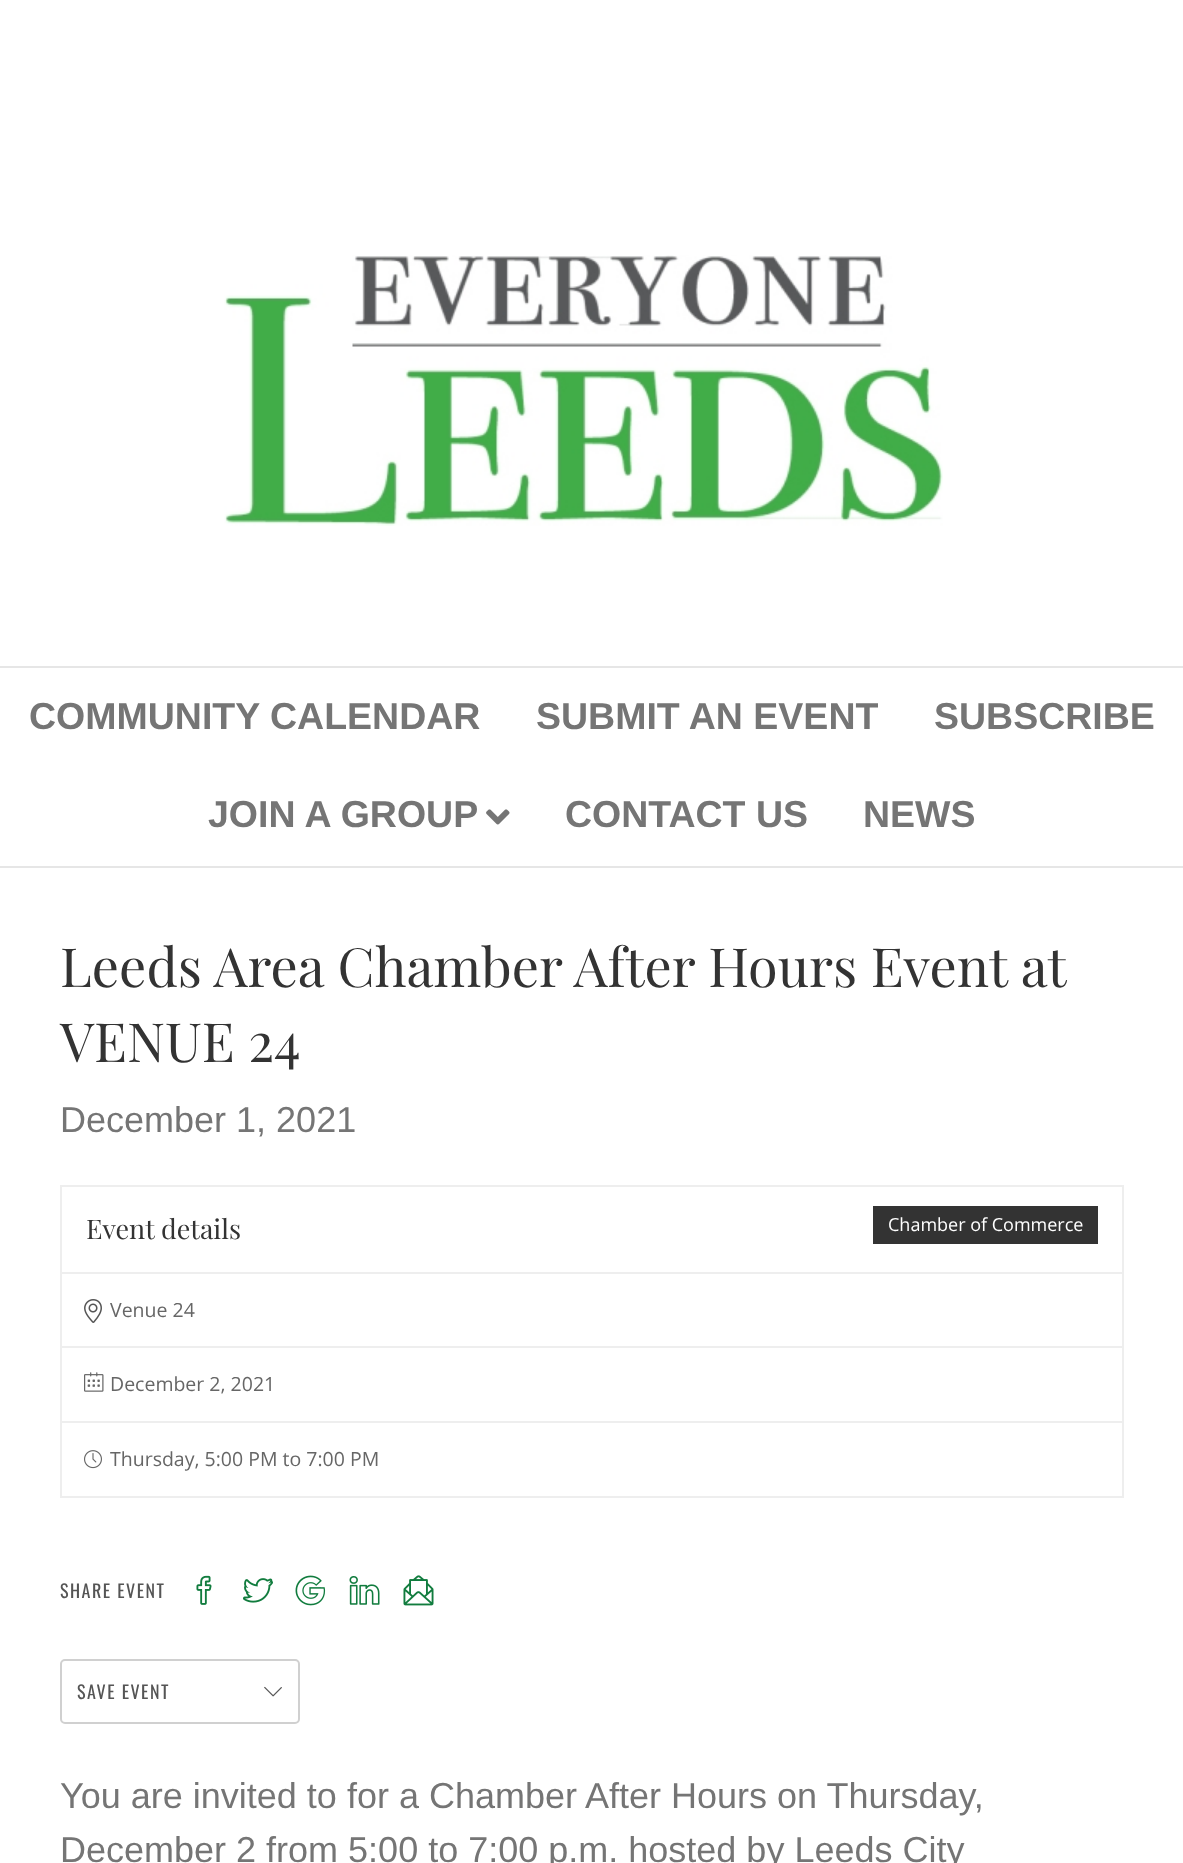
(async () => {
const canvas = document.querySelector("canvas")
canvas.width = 1183
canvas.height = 1863
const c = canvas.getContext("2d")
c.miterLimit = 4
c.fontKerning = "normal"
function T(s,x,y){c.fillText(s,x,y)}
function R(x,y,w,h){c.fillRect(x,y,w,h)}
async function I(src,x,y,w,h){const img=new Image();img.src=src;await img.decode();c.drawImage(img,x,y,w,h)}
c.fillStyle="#fff"
R(0,0,1183,1863)
await I("1.png",224,255,719,271)
c.fillStyle="#e6e6e6"
R(0,666,1183,2)
R(0,866,1183,2)
c.font="bold 37.5px Liberation Sans"
c.fillStyle="#757575"
T("COMMUNITY CALENDAR",29,729)
T("SUBMIT AN EVENT",536,729)
T("SUBSCRIBE",934,729)
T("JOIN A GROUP",208,827)
await I("2.png",486,809,24,16)
T("CONTACT US",565,827)
T("NEWS",863,827)
c.font="54px Playfair Display"
c.fillStyle="#333"
T("Leeds Area Chamber After Hours Event at",60,987)
T("VENUE 24",60,1062)
c.font="36px Arimo"
c.fillStyle="#757575"
T("December 1, 2021",60,1132)
c.strokeStyle="#eee"
c.lineWidth=2
c.strokeRect(61,1186,1062,87)
c.font="27px Playfair Display"
c.fillStyle="#333"
T("Event details",86,1239)
R(873,1206,225,38)
c.font="18px Open Sans"
c.fillStyle="#fff"
T("Chamber of Commerce",888,1231)
c.fillStyle="#eee"
R(1122,1274,2,223)
R(60,1496,1064,2)
R(60,1274,2,223)
R(62,1346,1060,2)
await I("3.png",84,1299,18,24)
c.font="19.5px Open Sans"
c.fillStyle="#666"
T("Venue 24",110,1317)
c.fillStyle="#eee"
R(62,1421,1060,2)
await I("4.png",84,1372,20,20)
c.fillStyle="#666"
T("December 2, 2021",110,1391)
await I("5.png",84,1450,18,19)
T("Thursday, 5:00 PM to 7:00 PM",110,1466)
c.letterSpacing="1.5px"
c.font="18px Oswald"
c.fillStyle="#555"
T("SHARE EVENT",60,1598)
await I("6.png",196,1575,16,30)
await I("7.png",243,1578,30,25)
await I("8.png",295,1575,31,31)
await I("9.png",349,1576,31,29)
await I("10.png",403,1575,31,31)
c.beginPath()
c.roundRect(61,1660,238,63,4)
c.strokeStyle="#d0d0d0"
c.stroke()
T("SAVE EVENT",77,1699)
await I("11.png",264,1686,18,11)
c.letterSpacing="0px"
c.font="36px Arimo"
c.fillStyle="#757575"
T("You are invited to for a Chamber After Hours on Thursday,",60,1808)
T("December 2 from 5:00 to 7:00 p.m. hosted by Leeds City",60,1862)
})()
